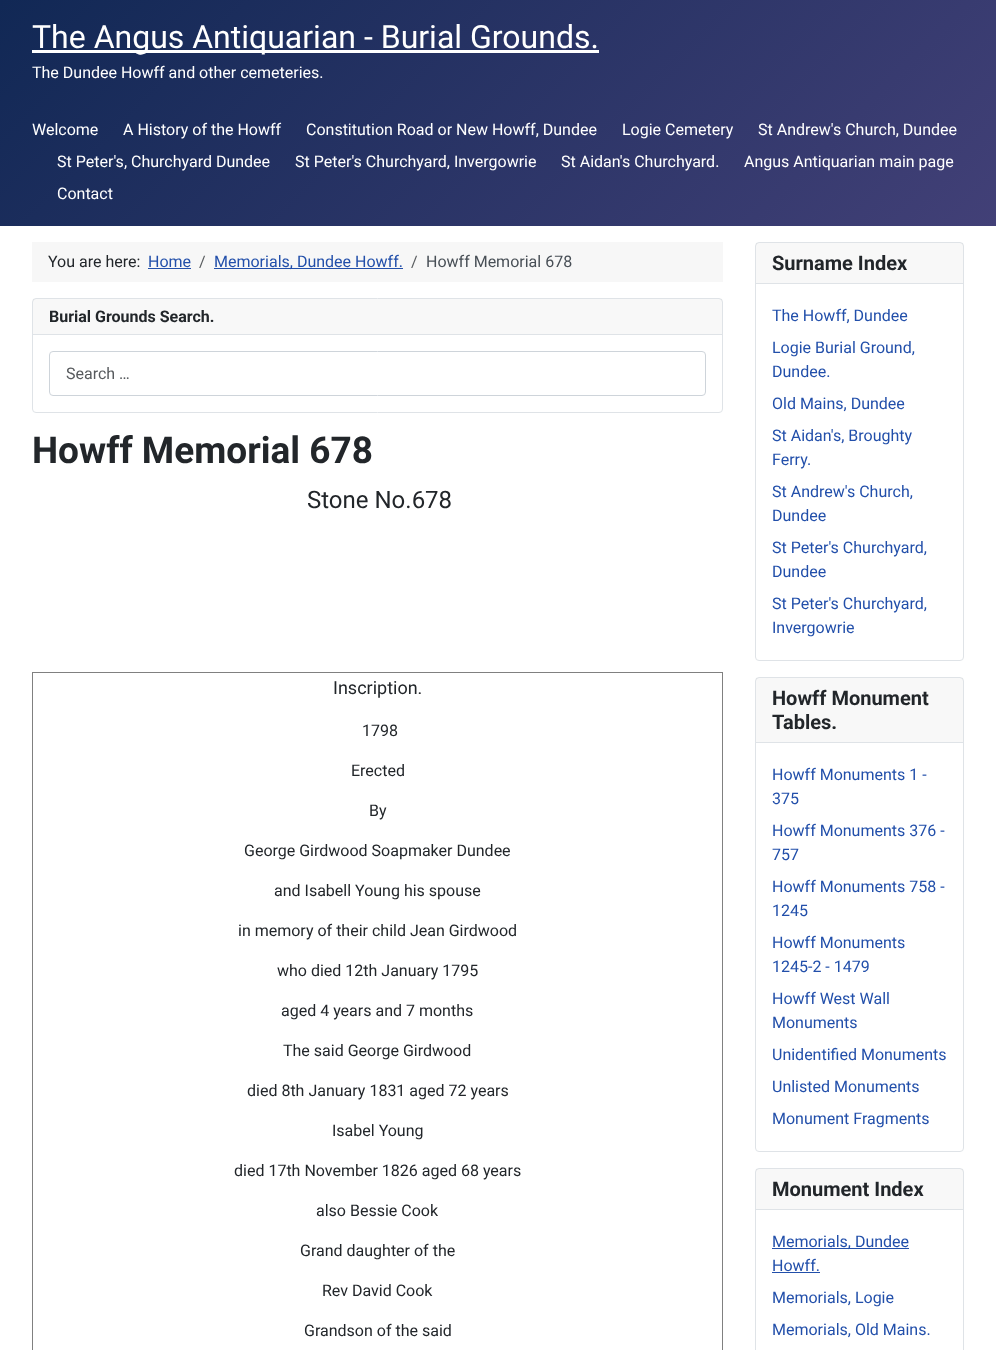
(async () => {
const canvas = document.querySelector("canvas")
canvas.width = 996
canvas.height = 1350
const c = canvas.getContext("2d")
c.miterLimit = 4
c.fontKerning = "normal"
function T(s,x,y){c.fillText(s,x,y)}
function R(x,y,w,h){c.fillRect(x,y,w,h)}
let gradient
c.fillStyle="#fff"
R(0,0,996,1350)
gradient = c.createLinearGradient(193,-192,804,418)
gradient.addColorStop(0,"#112855")
gradient.addColorStop(1,"#424077")
c.fillStyle = gradient
R(0,0,996,226)
c.fillStyle="#fff"
R(32,50,567,3)
c.font="32px Roboto"
T("The Angus Antiquarian - Burial Grounds.",32,48)
c.font="16px Roboto"
T("The Dundee Howff and other cemeteries.",32,78)
T("Welcome",32,135)
T("A History of the Howff",123,135)
T("Constitution Road or New Howff, Dundee",306,135)
T("Logie Cemetery",622,135)
T("St Andrew's Church, Dundee",758,135)
T("St Peter's, Churchyard Dundee",57,167)
T("St Peter's Churchyard, Invergowrie",295,167)
T("St Aidan's Churchyard.",561,167)
T("Angus Antiquarian main page",744,167)
T("Contact",57,199)
c.fillStyle="#f7f7f7"
R(32,242,691,40)
c.fillStyle="#22262a"
T("You are here:",48,267)
c.fillStyle="#224faa"
T("Home",148,267)
R(148,268,43,1)
c.fillStyle="#575a5d"
T("/",199,267)
c.fillStyle="#224faa"
R(214,268,189,1)
T("Memorials, Dundee Howff.",214,267)
c.fillStyle="#575a5d"
T("/",411,267)
c.fillStyle="#484f56"
T("Howff Memorial 678",426,267)
c.beginPath()
c.roundRect(32.5,298.5,690,114,3.5)
c.strokeStyle="#dfe3e7"
c.stroke()
c.fillStyle="#22262a08"
R(33,299,689,35)
c.fillStyle="#dfe3e7"
R(33,334,689,1)
c.font="bold 16px Roboto"
c.fillStyle="#22262a"
T("Burial Grounds Search.",49,322)
c.beginPath()
c.roundRect(49.5,351.5,656,44,3.5)
c.strokeStyle="#ced4da"
c.stroke()
c.font="16px Roboto"
c.fillStyle="#575a5d"
T("Search …",66,379)
c.font="bold 37px Roboto"
c.fillStyle="#22262a"
T("Howff Memorial 678",32,463)
c.font="24px Roboto"
T("Stone No.678",307,508)
c.fillStyle="#808080"
R(32,672,691,1)
R(722,672,1,678)
R(32,672,1,678)
c.font="18px Roboto"
c.fillStyle="#22262a"
T("Inscription.",333,694)
c.font="16px Roboto"
T("1798",362,736)
T("Erected",351,776)
T("By",369,816)
T("George Girdwood Soapmaker Dundee",244,856)
T("and Isabell Young his spouse",274,896)
T("in memory of their child Jean Girdwood",238,936)
T("who died 12th January 1795",277,976)
T("aged 4 years and 7 months",281,1016)
T("The said George Girdwood",283,1056)
T("died 8th January 1831 aged 72 years",247,1096)
T("Isabel Young",332,1136)
T("died 17th November 1826 aged 68 years",234,1176)
T("also Bessie Cook",316,1216)
T("Grand daughter of the",300,1256)
T("Rev David Cook",322,1296)
T("Grandson of the said",304,1336)
c.beginPath()
c.roundRect(755.5,242.5,208,418,3.5)
c.strokeStyle="#dfe3e7"
c.stroke()
c.fillStyle="#22262a08"
R(756,243,207,40)
c.fillStyle="#dfe3e7"
R(756,283,207,1)
c.font="bold 20px Roboto"
c.fillStyle="#22262a"
T("Surname Index",772,270)
c.font="16px Roboto"
c.fillStyle="#224faa"
T("The Howff, Dundee",772,321)
T("Logie Burial Ground,",772,353)
T("Dundee.",772,377)
T("Old Mains, Dundee",772,409)
T("St Aidan's, Broughty",772,441)
T("Ferry.",772,465)
T("St Andrew's Church,",772,497)
T("Dundee",772,521)
T("St Peter's Churchyard,",772,553)
T("Dundee",772,577)
T("St Peter's Churchyard,",772,609)
T("Invergowrie",772,633)
c.beginPath()
c.roundRect(755.5,677.5,208,474,3.5)
c.stroke()
c.fillStyle="#22262a08"
R(756,678,207,64)
c.fillStyle="#dfe3e7"
R(756,742,207,1)
c.font="bold 20px Roboto"
c.fillStyle="#22262a"
T("Howff Monument",772,705)
T("Tables.",772,729)
c.font="16px Roboto"
c.fillStyle="#224faa"
T("Howff Monuments 1 -",772,780)
T("375",772,804)
T("Howff Monuments 376 -",772,836)
T("757",772,860)
T("Howff Monuments 758 -",772,892)
T("1245",772,916)
T("Howff Monuments",772,948)
T("1245-2 - 1479",772,972)
T("Howff West Wall",772,1004)
T("Monuments",772,1028)
T("Unidentified Monuments",772,1060)
T("Unlisted Monuments",772,1092)
T("Monument Fragments",772,1124)
c.beginPath()
c.roundRect(755.5,1168.5,208,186,3.5)
c.stroke()
c.fillStyle="#22262a08"
R(756,1169,207,40)
c.fillStyle="#dfe3e7"
R(756,1209,207,1)
c.font="bold 20px Roboto"
c.fillStyle="#22262a"
T("Monument Index",772,1196)
c.fillStyle="#224faa"
R(772,1248,137,1)
c.font="16px Roboto"
T("Memorials, Dundee",772,1247)
T("Howff.",772,1271)
R(772,1272,48,1)
T("Memorials, Logie",772,1303)
T("Memorials, Old Mains.",772,1335)
})()
